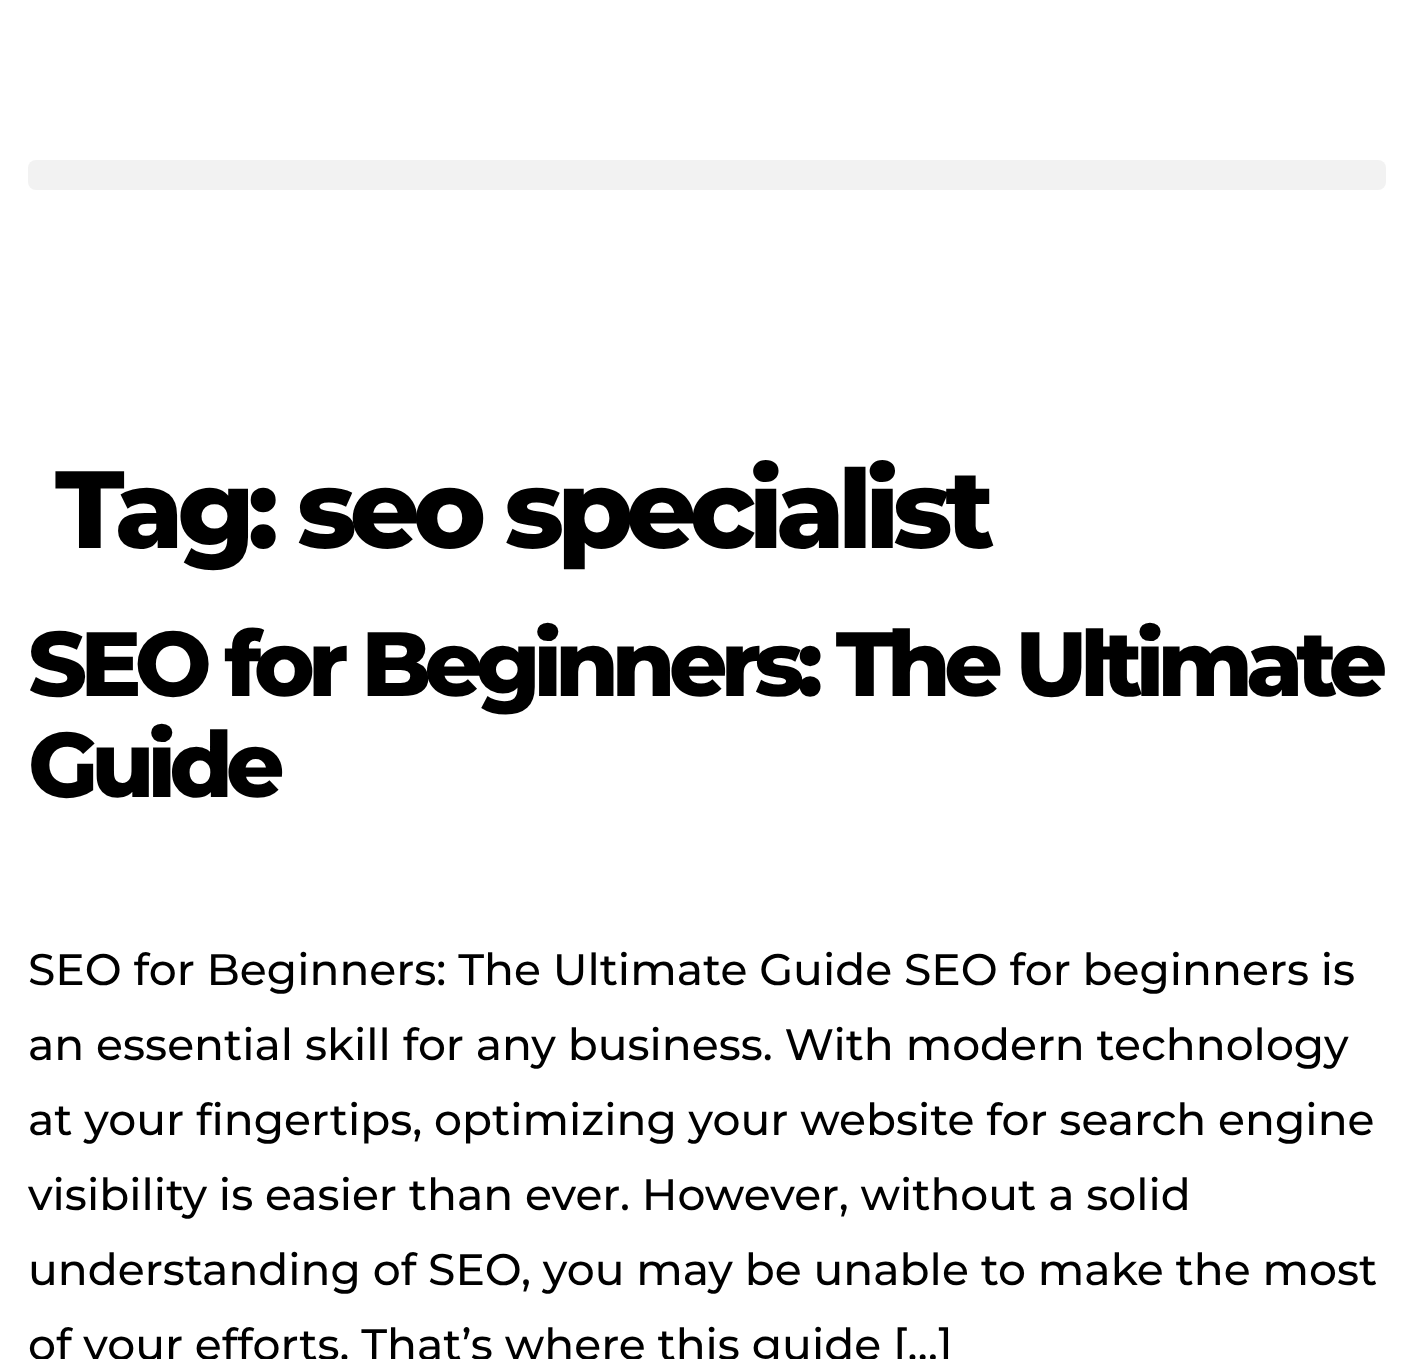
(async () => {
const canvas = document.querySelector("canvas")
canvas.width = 1413
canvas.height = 1359
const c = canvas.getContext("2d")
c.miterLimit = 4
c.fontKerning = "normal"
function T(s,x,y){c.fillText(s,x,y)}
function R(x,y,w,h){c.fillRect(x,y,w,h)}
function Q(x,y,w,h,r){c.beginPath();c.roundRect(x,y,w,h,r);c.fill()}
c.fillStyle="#fff"
R(0,0,1413,1359)
c.fillStyle="#f2f2f2"
Q(28,160,1358,30,8)
c.letterSpacing="-6.9px"
c.font="800 109.5px Montserrat"
c.fillStyle="#000"
T("Tag: seo specialist",55,548)
c.font="800 91.25px Montserrat"
T("SEO for Beginners: The Ultimate",28,696)
T("Guide",28,797)
c.letterSpacing="0px"
c.font="500 44px Montserrat"
T("SEO for Beginners: The Ultimate Guide SEO for beginners is",28,985)
T("an essential skill for any business. With modern technology",28,1060)
T("at your fingertips, optimizing your website for search engine",28,1135)
T("visibility is easier than ever. However, without a solid",28,1210)
T("understanding of SEO, you may be unable to make the most",28,1285)
T("of your efforts. That’s where this guide […]",28,1360)
})()
